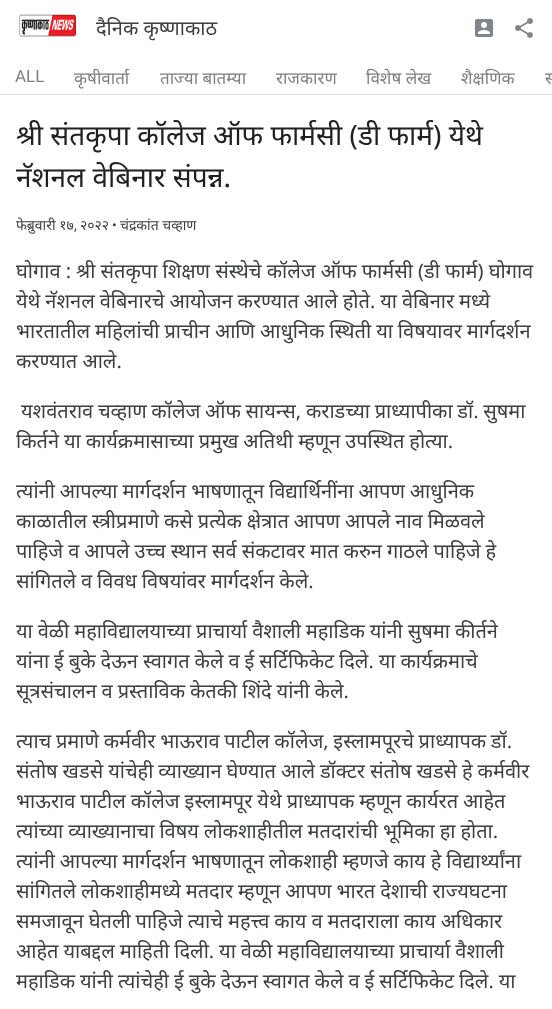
(async () => {
const canvas = document.querySelector("canvas")
canvas.width = 552
canvas.height = 1009
const c = canvas.getContext("2d")
c.miterLimit = 4
c.fontKerning = "normal"
function T(s,x,y){c.fillText(s,x,y)}
function R(x,y,w,h){c.fillRect(x,y,w,h)}
async function I(src,x,y,w,h){const img=new Image();img.src=src;await img.decode();c.drawImage(img,x,y,w,h)}
c.fillStyle="#fff"
R(0,0,552,1009)
c.fillStyle="#e0e0e0"
R(0,94,552,1)
await I("1.png",19,14,57,23)
c.font="20px Noto Sans"
c.fillStyle="#3c4043"
T("दैनिक कृष्णाकाठ",96,35)
await I("2.png",475,19,18,18)
await I("3.png",515,18,18,20)
c.font="17px Roboto"
c.fillStyle="#808080"
T("ALL",15,82)
c.font="17px Noto Sans"
T("कृषीवार्ता",74,84)
T("ताज्या बातम्या",160,84)
T("राजकारण",276,84)
T("विशेष लेख",366,84)
T("शैक्षणिक",461,84)
T("स",545,84)
c.save()
c.beginPath()
c.rect(16,115,520,84)
c.clip()
c.font="28px Noto Sans"
c.fillStyle="#202124"
T("श्री संतकृपा कॉलेज ऑफ फार्मसी (डी फार्म) येथे",16,145)
T("नॅशनल वेबिनार संपन्न.",16,187)
c.restore()
c.save()
c.beginPath()
c.rect(16,215,520,21)
c.clip()
c.font="14px Noto Sans"
c.fillStyle="#3c4043"
T("फेब्रुवारी १७",16,230)
c.restore()
c.font="14px Noto Sans"
c.fillStyle="#3c4043"
T("२०२२",80,230)
c.font="14px Roboto"
T("•",112,230)
c.font="14px Noto Sans"
T("चंद्रकांत चव्हाण",120,230)
c.font="14px Roboto"
T(",",74,230)
c.wordSpacing="-0.1px"
c.font="20px Noto Sans"
T("घोगाव : श्री संतकृपा शिक्षण संस्थेचे कॉलेज ऑफ फार्मसी (डी फार्म) घोगाव",16,278)
c.wordSpacing="-0.25px"
T("येथे नॅशनल वेबिनारचे आयोजन करण्यात आले होते. या वेबिनार मध्ये",16,308)
T("भारतातील महिलांची प्राचीन आणि आधुनिक स्थिती या विषयावर मार्गदर्शन",16,338)
c.wordSpacing="0px"
T("करण्यात आले.",16,368)
c.wordSpacing="-0.5px"
T("यशवंतराव चव्हाण कॉलेज ऑफ सायन्स, कराडच्या प्राध्यापीका डॉ. सुषमा",21,418)
c.wordSpacing="-0.25px"
T("किर्तने या कार्यक्रमासाच्या प्रमुख अतिथी म्हणून उपस्थित होत्या.",16,448)
T("त्यांनी आपल्या मार्गदर्शन भाषणातून विद्यार्थिनींना आपण आधुनिक",16,498)
T("काळातील स्त्रीप्रमाणे कसे प्रत्येक क्षेत्रात आपण आपले नाव मिळवले",16,528)
T("पाहिजे व आपले उच्च स्थान सर्व संकटावर मात करुन गाठले पाहिजे हे",16,558)
T("सांगितले व विवध विषयांवर मार्गदर्शन केले.",16,588)
T("या वेळी महाविद्यालयाच्या प्राचार्या वैशाली महाडिक यांनी सुषमा कीर्तने",16,638)
T("यांना ई बुके देऊन स्वागत केले व ई सर्टिफिकेट दिले. या कार्यक्रमाचे",16,668)
T("सूत्रसंचालन व प्रस्ताविक केतकी शिंदे यांनी केले.",16,698)
c.wordSpacing="-0.5px"
T("त्याच प्रमाणे कर्मवीर भाऊराव पाटील कॉलेज, इस्लामपूरचे प्राध्यापक डॉ.",16,748)
c.wordSpacing="-0.25px"
T("संतोष खडसे यांचेही व्याख्यान घेण्यात आले डॉक्टर संतोष खडसे हे कर्मवीर",16,778)
T("भाऊराव पाटील कॉलेज इस्लामपूर येथे प्राध्यापक म्हणून कार्यरत आहेत",16,808)
T("त्यांच्या व्याख्यानाचा विषय लोकशाहीतील मतदारांची भूमिका हा होता.",16,838)
T("त्यांनी आपल्या मार्गदर्शन भाषणातून लोकशाही म्हणजे काय हे विद्यार्थ्यांना",16,868)
T("सांगितले लोकशाहीमध्ये मतदार म्हणून आपण भारत देशाची राज्यघटना",16,898)
T("समजावून घेतली पाहिजे त्याचे महत्त्व काय व मतदाराला काय अधिकार",16,928)
T("आहेत याबद्दल माहिती दिली. या वेळी महाविद्यालयाच्या प्राचार्या वैशाली",16,958)
T("महाडिक यांनी त्यांचेही",16,988)
T("ई बुके देऊन स्वागत केले व ई सर्टिफिकेट दिले. या",174,988)
})()
